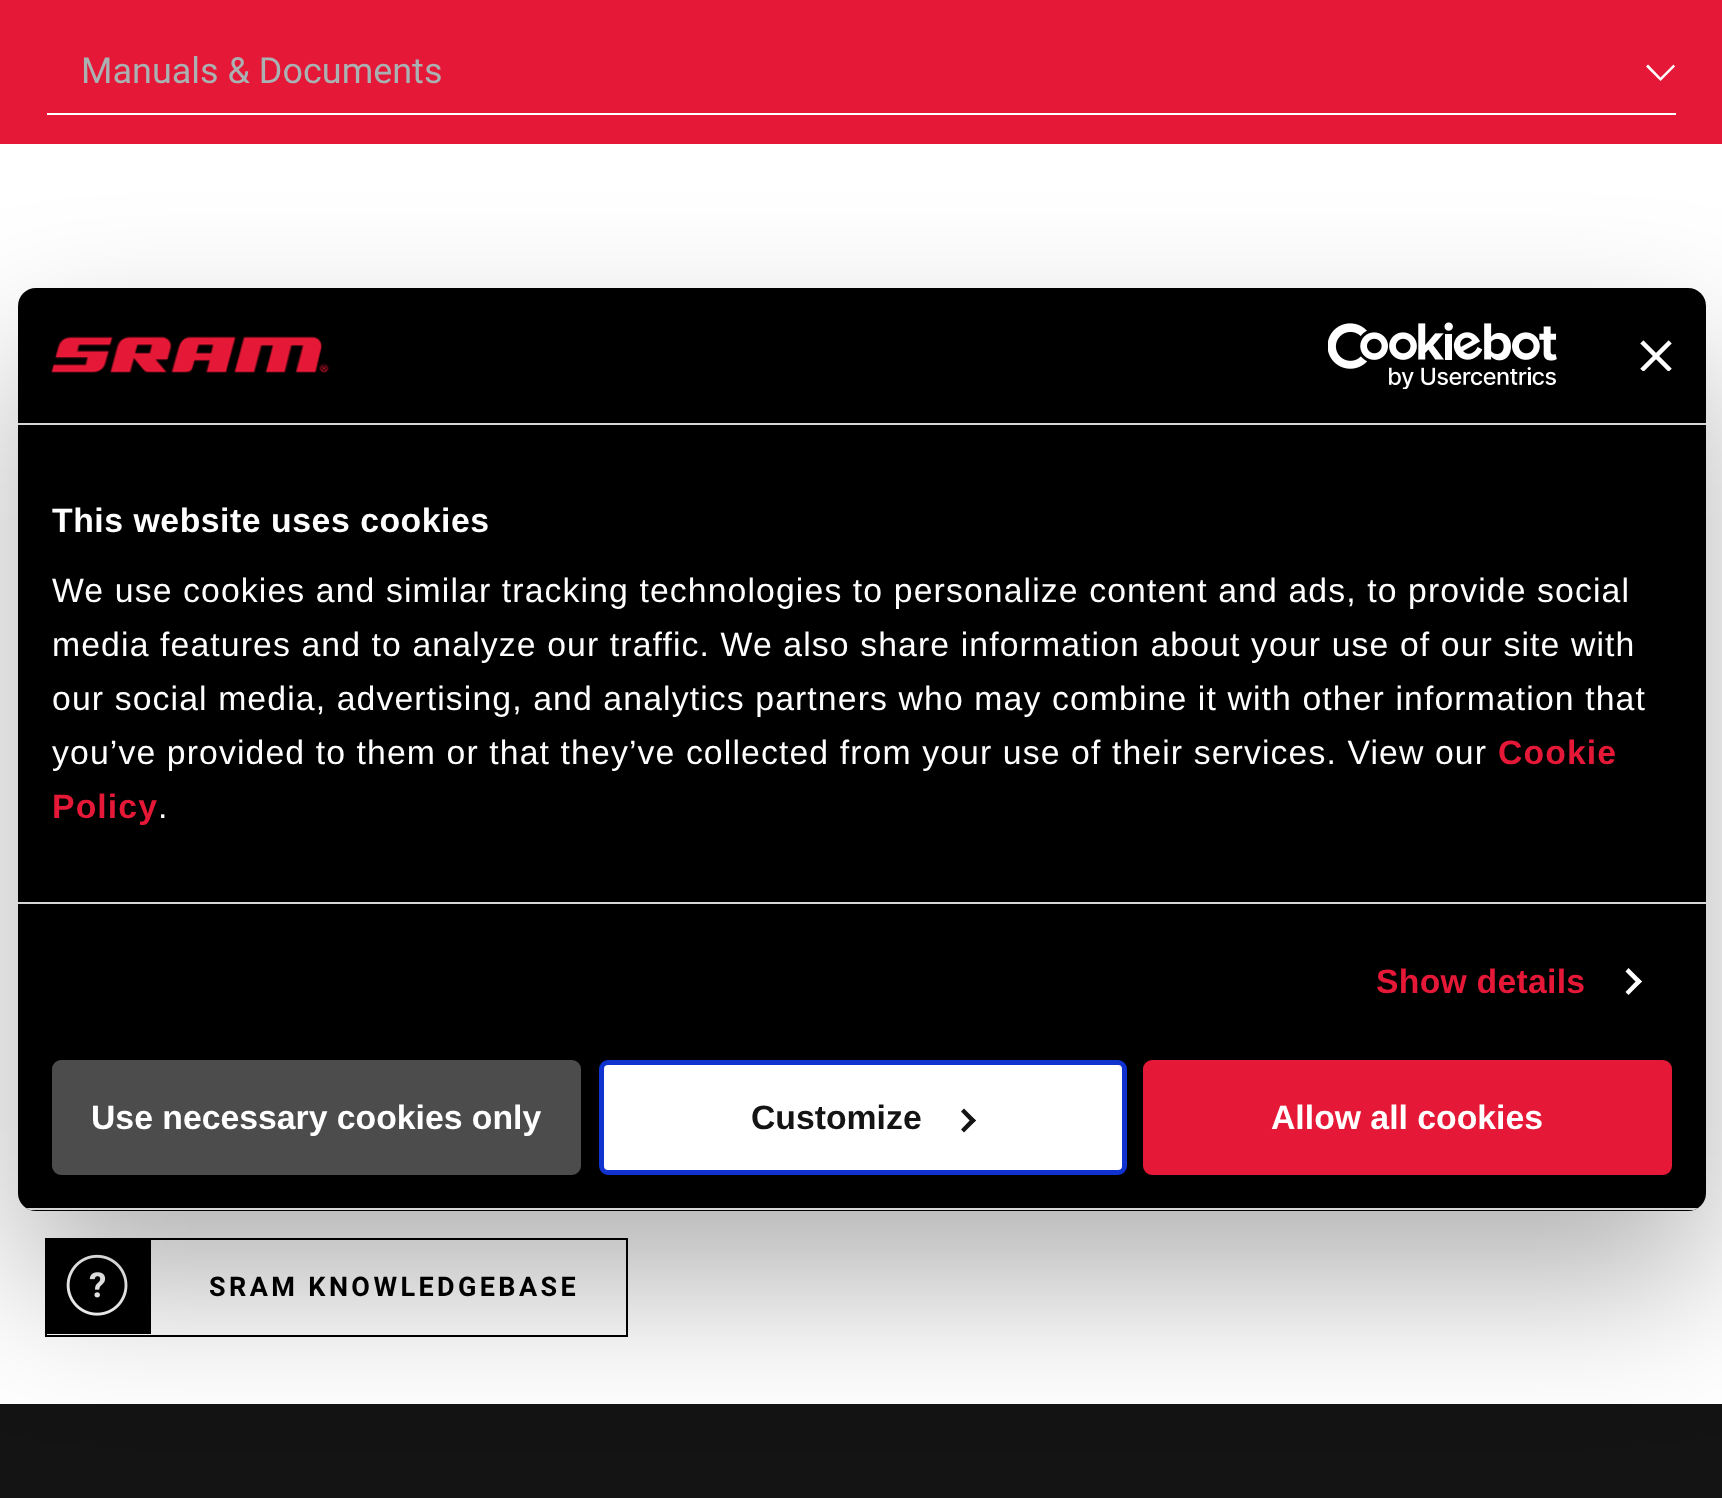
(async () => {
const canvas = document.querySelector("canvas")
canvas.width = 1722
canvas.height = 1498
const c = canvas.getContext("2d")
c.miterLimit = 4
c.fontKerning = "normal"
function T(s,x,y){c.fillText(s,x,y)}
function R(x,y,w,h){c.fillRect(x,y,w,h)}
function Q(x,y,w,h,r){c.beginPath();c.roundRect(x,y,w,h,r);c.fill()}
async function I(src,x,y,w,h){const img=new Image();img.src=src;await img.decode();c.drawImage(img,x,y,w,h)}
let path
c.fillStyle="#fff"
R(0,0,1722,1498)
c.fillStyle="#e51937"
R(0,0,1722,144)
c.font="36px Roboto"
c.fillStyle="#aab1b3"
T("Manuals & Documents",81,83)
c.fillStyle="#fff"
R(47,113,1629,2)
path = new Path2D("M1660.5 77.5l13-13l1.5 2l-14.5 14.5l-14.5-14.5l2-2z")
c.fill(path)
c.strokeStyle="#000"
c.lineWidth=2
c.strokeRect(46,1239,581,97)
c.fillStyle="#000"
R(47,1240,104,94)
await I("1.png",66,1254,62,62)
c.letterSpacing="3.4px"
c.font="bold 27px Roboto"
T("SRAM KNOWLEDGEBASE",209,1296)
c.fillStyle="#141414"
R(0,1404,1722,94)
c.fillStyle="#0000004d"
c.filter="blur(76.5px)"
c.beginPath()
c.roundRect(18,360,1688,923,18)
c.fill()
c.filter="none"
c.fillStyle="#000"
Q(18,288,1688,923,18)
c.fillStyle="#d6d6d6"
R(18,423,1688,2)
await I("2.png",51,336,278,38)
await I("3.png",1328,322,229,67)
await I("4.png",1640,340,32,31)
R(18,902,1688,2)
c.letterSpacing="0.55px"
c.font="bold 33.75px Liberation Sans"
c.fillStyle="#fff"
T("This website uses cookies",52,532)
c.letterSpacing="1.12px"
c.font="33.75px Liberation Sans"
T("We use cookies and similar tracking technologies to personalize content and ads, to provide social",52,602)
T("media features and to analyze our traffic. We also share information about your use of our site with",52,656)
T("our social media, advertising, and analytics partners who may combine it with other information that",52,710)
T("you’ve provided to them or that they’ve collected from your use of their services. View our",52,764)
c.font="bold 33.75px Liberation Sans"
c.fillStyle="#e51937"
T("Cookie",1498,764)
T("Policy",52,818)
c.font="33.75px Liberation Sans"
c.fillStyle="#fff"
T(".",158,818)
c.letterSpacing="0.25px"
c.font="bold 33.75px Liberation Sans"
c.fillStyle="#e51937"
T("Show details",1376,993)
c.fillStyle="#fff"
path = new Path2D("M1628.5 968l13.5 13.5l-3.5 3l-13-13z")
c.fill(path)
path = new Path2D("M1638.5 978.5l3.5 3l-13.5 13.5l-3-3z")
c.fill(path)
c.save()
c.beginPath()
c.roundRect(18,288,1688,923,18)
c.clip()
c.fillStyle="#d6d6d6"
R(18,1208,1688,2)
c.restore()
c.fillStyle="#4c4c4c"
c.beginPath()
c.roundRect(54.5,1062.5,524,110,6.5)
c.fill()
c.strokeStyle="#4c4c4c"
c.lineWidth=5
c.stroke()
c.letterSpacing="0px"
c.fillStyle="#fff"
T("Use necessary cookies only",91,1129)
c.beginPath()
c.roundRect(601.5,1062.5,523,110,6.5)
c.fill()
c.strokeStyle="#1032cf"
c.stroke()
c.fillStyle="#141414"
T("Customize",751,1129)
path = new Path2D("M964 1108.5l12 12l-3.5 3l-11.5-12z")
c.fill(path)
path = new Path2D("M972.5 1117.5l3.5 3l-12 12l-3-3z")
c.fill(path)
c.fillStyle="#e51937"
c.beginPath()
c.roundRect(1145.5,1062.5,524,110,6.5)
c.fill()
c.strokeStyle="#e51937"
c.stroke()
c.fillStyle="#fff"
T("Allow all cookies",1271,1129)
})()
